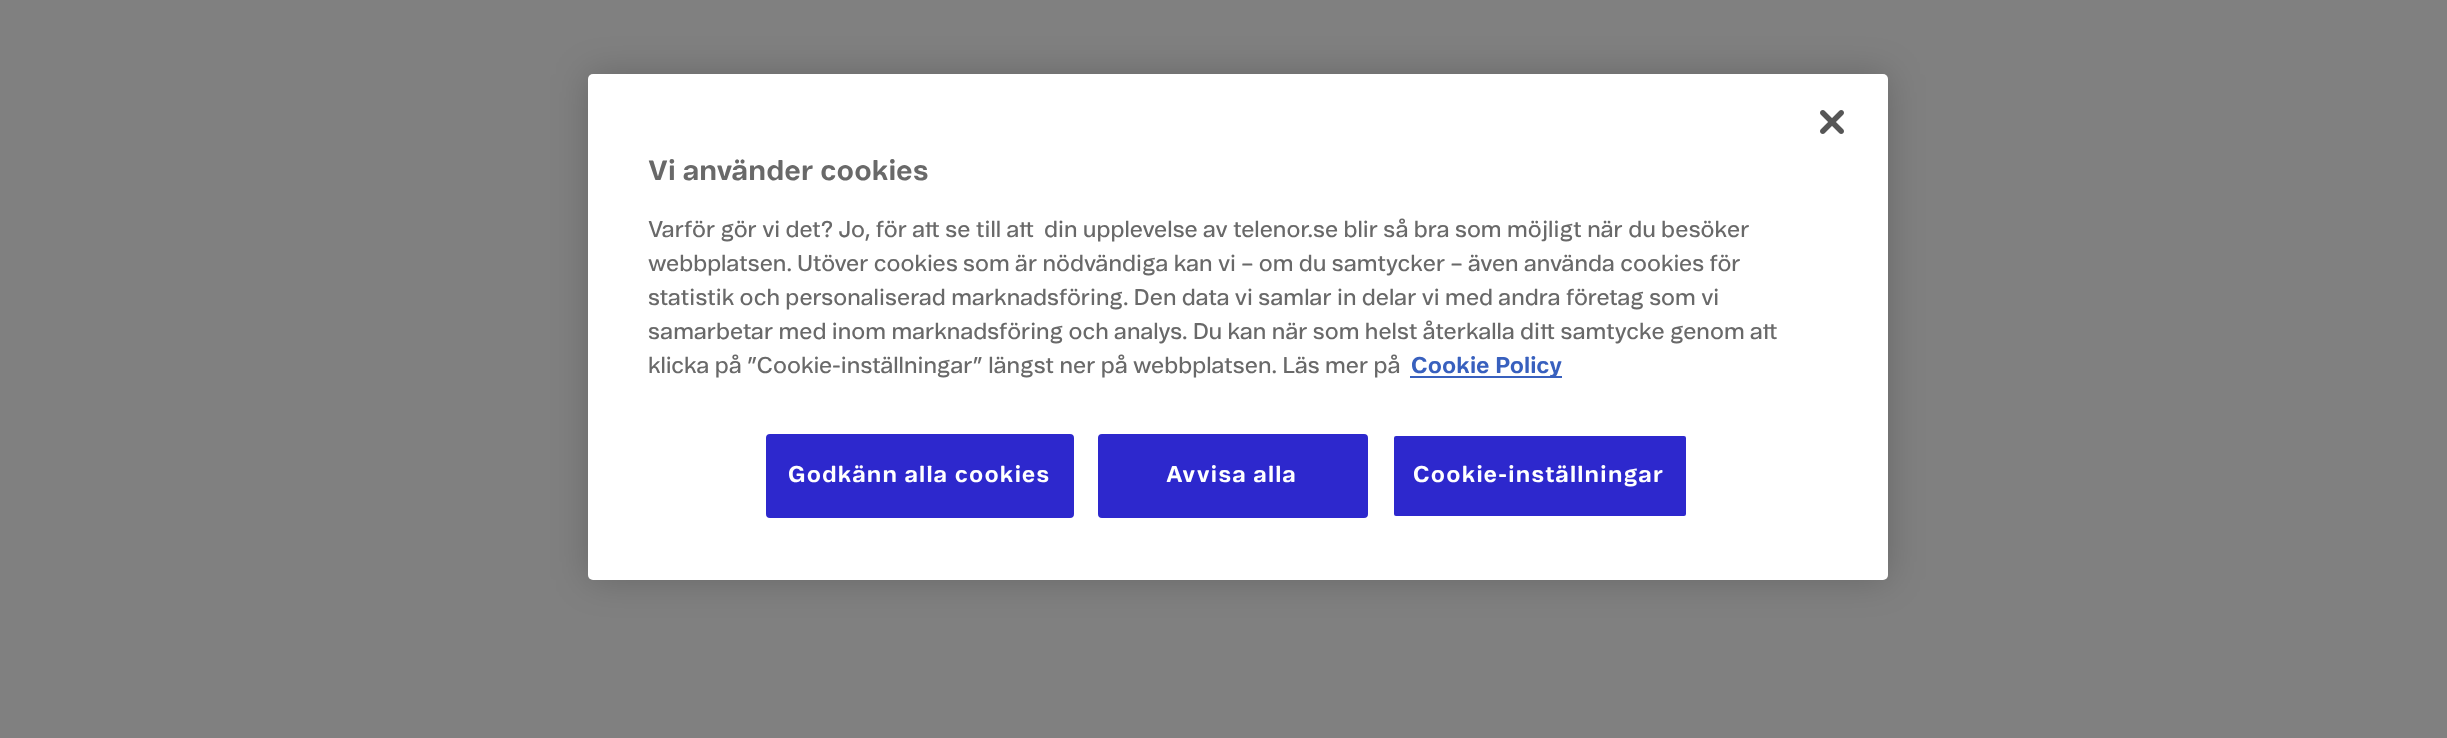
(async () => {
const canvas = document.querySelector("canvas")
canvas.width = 2447
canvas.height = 738
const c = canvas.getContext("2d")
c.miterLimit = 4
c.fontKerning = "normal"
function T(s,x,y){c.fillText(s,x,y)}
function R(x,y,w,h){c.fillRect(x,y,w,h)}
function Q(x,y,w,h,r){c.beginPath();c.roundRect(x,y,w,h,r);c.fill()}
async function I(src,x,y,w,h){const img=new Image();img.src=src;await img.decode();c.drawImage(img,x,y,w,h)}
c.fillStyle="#808080"
R(0,0,2447,738)
c.fillStyle="#00000033"
c.filter="blur(18px)"
c.beginPath()
c.roundRect(588,74,1300,506,5)
c.fill()
c.filter="none"
c.fillStyle="#fff"
Q(588,74,1300,506,5)
await I("1.png",1820,110,24,24)
c.font="bold 28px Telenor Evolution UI"
c.fillStyle="#696969"
T("Vi använder cookies",648,180)
c.font="22.75px Telenor Evolution UI"
T("Varför gör vi det? Jo, för att se till att",648,237)
T("din upplevelse av telenor.se blir så bra som möjligt när du besöker",1044,237)
T("webbplatsen. Utöver cookies som är nödvändiga kan vi – om du samtycker – även använda cookies för",648,271)
T("statistik och personaliserad marknadsföring. Den data vi samlar in delar vi med andra företag som vi",648,305)
T("samarbetar med inom marknadsföring och analys. Du kan när som helst återkalla ditt samtycke genom att",648,339)
T("klicka på ”Cookie-inställningar” längst ner på webbplatsen. Läs mer på",648,373)
c.fillStyle="#3860be"
R(1410,376,152,2)
c.font="bold 22.75px Telenor Evolution UI"
T("Cookie Policy",1411,373)
c.fillStyle="#2d28cd"
c.beginPath()
c.roundRect(767,435,306,82,3)
c.fill()
c.strokeStyle="#2d28cd"
c.lineWidth=2
c.stroke()
c.letterSpacing="1.1px"
c.fillStyle="#fff"
T("Godkänn alla cookies",788,482)
c.fillStyle="#2d28cd"
c.beginPath()
c.roundRect(1099,435,268,82,3)
c.fill()
c.stroke()
c.fillStyle="#fff"
T("Avvisa alla",1166,482)
c.fillStyle="#2d28cd"
c.beginPath()
c.roundRect(1393,435,294,82,3)
c.fill()
c.strokeStyle="#fff"
c.stroke()
c.fillStyle="#fff"
T("Cookie-inställningar",1413,482)
})()
